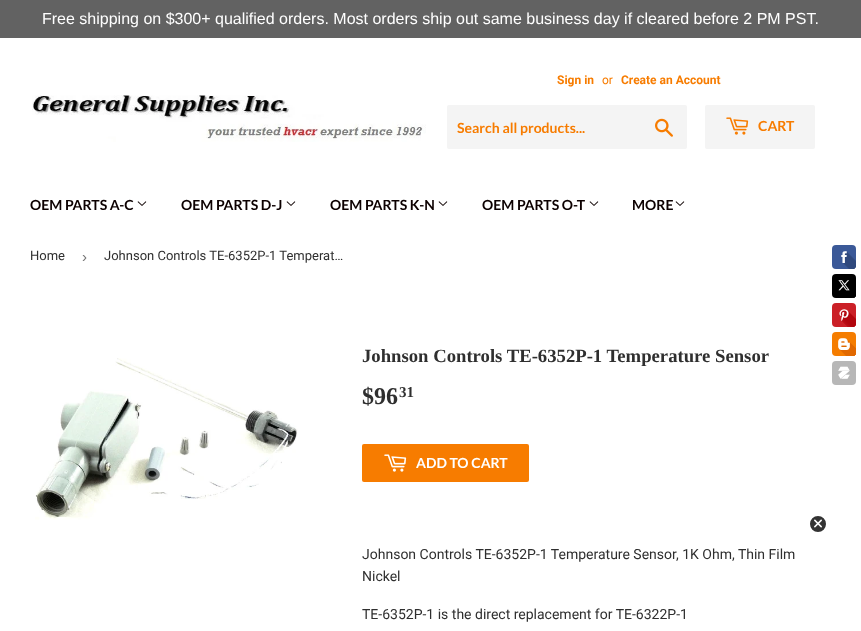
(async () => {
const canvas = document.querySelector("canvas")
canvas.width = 861
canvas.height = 631
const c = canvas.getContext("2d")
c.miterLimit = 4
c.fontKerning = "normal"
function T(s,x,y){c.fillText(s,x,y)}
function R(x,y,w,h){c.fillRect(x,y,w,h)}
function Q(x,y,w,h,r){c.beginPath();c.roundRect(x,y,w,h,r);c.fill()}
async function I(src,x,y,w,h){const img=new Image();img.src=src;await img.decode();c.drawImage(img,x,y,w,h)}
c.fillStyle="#fff"
R(0,0,861,631)
c.fillStyle="#626262"
R(0,0,861,38)
c.font="16px Liberation Sans"
c.fillStyle="#fff"
T("Free shipping on $300+ qualified orders. Most orders ship out same business day if cleared before 2 PM PST.",42,24)
await I("1.png",32,95,394,47)
c.font="bold 12px Roboto"
c.fillStyle="#f77c00"
T("Sign in",557,84)
c.font="12px Roboto"
T("or",602,84)
c.font="bold 12px Roboto"
T("Create an Account",621,84)
c.fillStyle="#f4f4f4"
Q(447,105,240,44,2)
c.font="bold 14px Lato"
c.fillStyle="#f77c00"
T("Search all products...",457,133)
await I("2.png",655,118,18,19)
c.fillStyle="#f4f4f4"
Q(705,105,110,44,2)
await I("3.png",726,117,23,18)
c.fillStyle="#f77c00"
T("CART",758,131)
c.fillStyle="#0c0000"
T("OEM PARTS A-C",30,210)
await I("4.png",137,201,10,5)
T("OEM PARTS D-J",181,210)
await I("4.png",286,201,10,5)
T("OEM PARTS K-N",330,210)
await I("4.png",438,201,10,5)
T("OEM PARTS O-T",482,210)
await I("4.png",589,201,10,5)
T("MORE",632,210)
await I("4.png",675,201,10,5)
c.font="13px Roboto"
c.fillStyle="#2f2f2f"
T("Home",30,260)
c.font="15px Liberation Sans"
c.fillStyle="#767676"
T("›",82,262)
c.font="13px Roboto"
c.fillStyle="#2f2f2f"
T("Johnson Controls TE-6352P-1 Temperat…",104,260)
await I("5.png",35,358,263,162)
c.font="bold 18.7px Liberation Serif"
T("Johnson Controls TE-6352P-1 Temperature Sensor",362,362)
c.font="bold 24px Liberation Serif"
T("$96",362,404)
c.font="bold 15px Liberation Serif"
T("31",399,397)
c.fillStyle="#f77c00"
Q(362,444,167,38,2)
await I("6.png",384,454,23,18)
c.font="bold 14px Lato"
c.fillStyle="#fff"
T("ADD TO CART",416,468)
c.font="14px Roboto"
c.fillStyle="#2f2f2f"
T("Johnson Controls TE-6352P-1 Temperature Sensor, 1K Ohm, Thin Film",362,559)
T("Nickel",362,581)
T("TE-6352P-1 is the direct replacement for TE-6322P-1",362,619)
c.fillStyle="#333"
c.beginPath()
c.arc(818,524,9,0,7)
c.fill()
c.strokeStyle="#fff"
c.lineWidth=2
c.stroke()
await I("7.png",814,519,8,9)
await I("8.png",832,245,24,140)
})()
